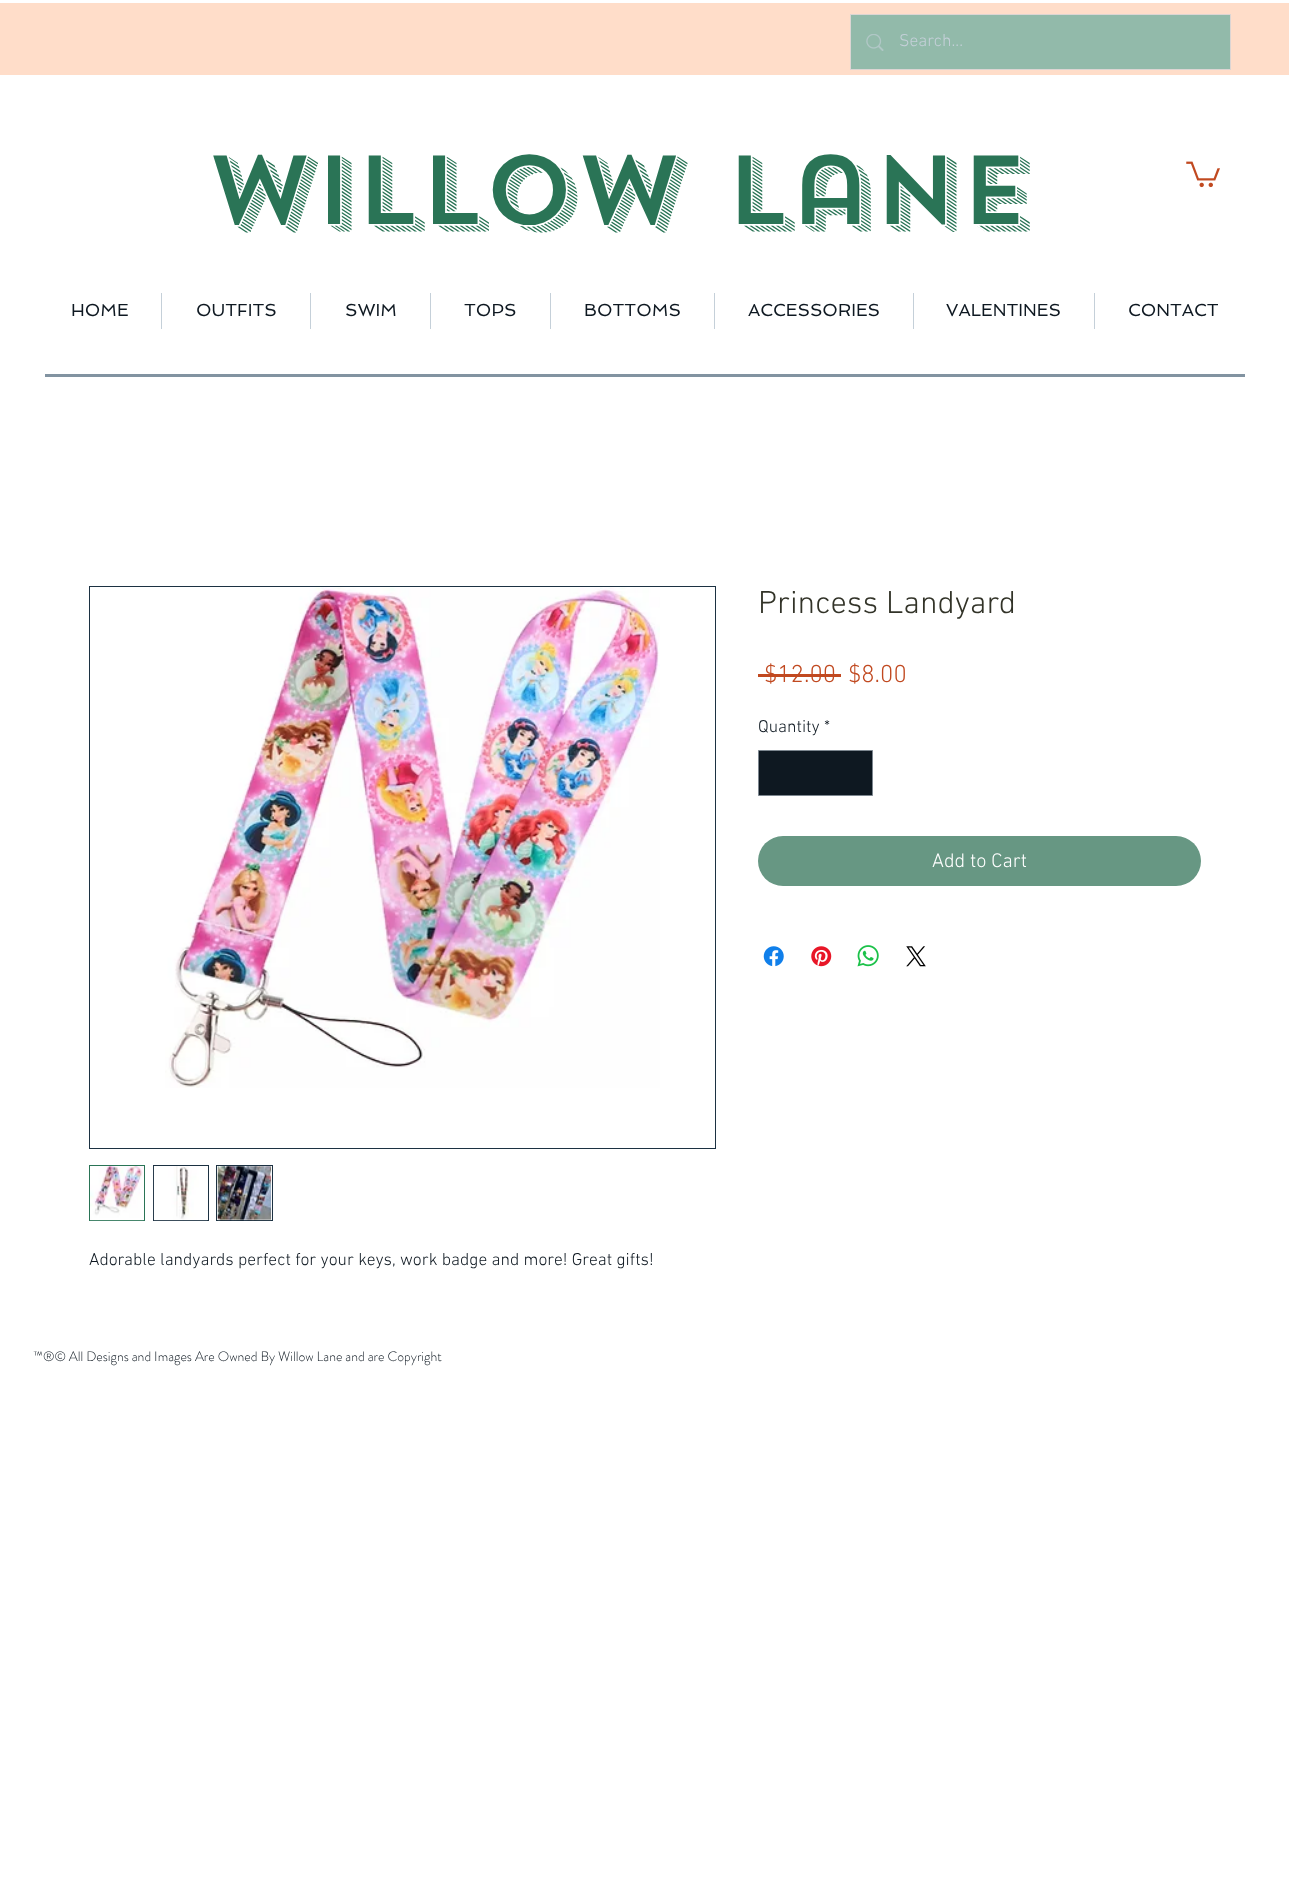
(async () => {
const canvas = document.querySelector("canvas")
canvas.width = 1289
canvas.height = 1891
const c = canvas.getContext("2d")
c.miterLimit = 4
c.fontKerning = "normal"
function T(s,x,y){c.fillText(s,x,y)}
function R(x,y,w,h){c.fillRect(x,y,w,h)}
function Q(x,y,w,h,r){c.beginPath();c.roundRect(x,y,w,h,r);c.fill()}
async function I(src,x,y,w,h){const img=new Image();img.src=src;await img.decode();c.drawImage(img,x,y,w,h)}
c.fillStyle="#fff"
R(0,0,1289,1891)
c.fillStyle="#ffddc9"
R(0,3,1289,72)
c.strokeStyle="#dcd5d3"
c.strokeRect(850.5,14.5,380,55)
c.fillStyle="#92baaa"
R(851,15,379,54)
await I("1.png",866,34,18,17)
c.font="300 17.5px 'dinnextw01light'"
c.fillStyle="#c5d0d9"
T("Search...",899,46)
c.font="500 97.5px 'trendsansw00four'"
c.fillStyle="#2a7456"
T("Willow Lane",206,224)
await I("2.png",1186,161,34,27)
c.font="17.5px Spinnaker"
c.fillStyle="#0e1821"
T("HOME",71,316)
c.fillStyle="#c5d0d9"
R(161,293,1,36)
c.fillStyle="#0e1821"
T("OUTFITS",196,316)
c.fillStyle="#c5d0d9"
R(310,293,1,36)
c.fillStyle="#0e1821"
T("SWIM",345,316)
c.fillStyle="#c5d0d9"
R(430,293,1,36)
c.fillStyle="#0e1821"
T("TOPS",464,316)
c.fillStyle="#c5d0d9"
R(550,293,1,36)
c.fillStyle="#0e1821"
T("BOTTOMS",584,316)
c.fillStyle="#c5d0d9"
R(714,293,1,36)
c.fillStyle="#0e1821"
T("ACCESSORIES",748,316)
c.fillStyle="#c5d0d9"
R(913,293,1,36)
c.fillStyle="#0e1821"
T("VALENTINES",946,316)
c.fillStyle="#c5d0d9"
R(1094,293,1,36)
c.fillStyle="#0e1821"
T("CONTACT",1128,316)
c.fillStyle="#8293a1"
R(45,374,1200,3)
c.font="300 32.5px 'dinnextw01light'"
c.fillStyle="#323328"
T("Princess Landyard",758,613)
c.font="300 25px 'dinnextw01light'"
c.fillStyle="#c14920"
T("$12.00",764,682)
R(758,674,83,3)
T("$8.00",848,682)
c.font="300 17.5px 'dinnextw01light'"
c.fillStyle="#0e1821"
T("Quantity",758,732)
T("*",824,732)
c.beginPath()
c.rect(758.5,750.5,114,45)
c.fill()
c.strokeStyle="#7c868f"
c.stroke()
c.fillStyle="#679783"
Q(758,836,443,50,25)
c.font="300 20px 'dinnextw01light'"
c.fillStyle="#fff"
T("Add to Cart",932,867)
await I("3.png",763,946,21,21)
await I("4.png",811,946,21,21)
await I("5.png",857,945,22,22)
await I("6.png",906,946,20,21)
c.strokeStyle="#1c3142"
c.strokeRect(89.5,586.5,626,562)
await I("7.png",165,587,495,501)
c.strokeStyle="#2a7456"
c.strokeRect(89.5,1165.5,55,55)
await I("8.png",90,1166,54,55)
c.strokeStyle="#1c3142"
c.strokeRect(153.5,1165.5,55,55)
await I("9.png",153,1166,55,55)
c.strokeRect(216.5,1165.5,56,55)
await I("10.png",217,1166,55,55)
c.font="300 17.5px 'dinnextw01light'"
c.fillStyle="#0e1821"
T("Adorable landyards perfect for your keys, work badge and more! Great gifts!",89,1265)
c.font="300 13.75px 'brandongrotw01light'"
T("™®© All Designs and Images Are Owned By Willow Lane and are Copyright",33,1361)
})()
